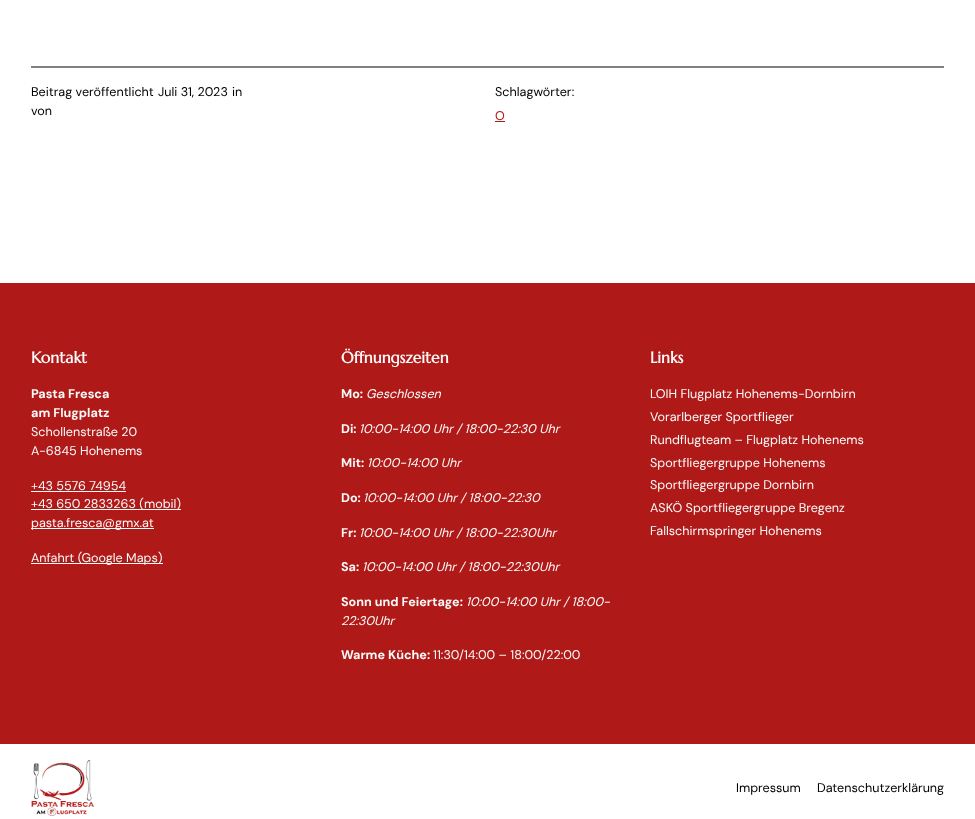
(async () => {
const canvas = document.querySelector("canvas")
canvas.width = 975
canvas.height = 819
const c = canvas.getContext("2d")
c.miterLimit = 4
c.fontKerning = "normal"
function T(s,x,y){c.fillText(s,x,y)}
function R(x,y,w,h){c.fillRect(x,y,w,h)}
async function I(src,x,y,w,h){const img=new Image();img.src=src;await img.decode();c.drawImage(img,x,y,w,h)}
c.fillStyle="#fff"
R(0,0,975,819)
c.fillStyle="#808080"
R(31,66,913,2)
c.font="12.6px DM Sans"
c.fillStyle="#000"
T("Beitrag veröffentlicht",31,96)
T("Juli 31, 2023",158,96)
T("in",232,96)
T("von",31,115)
T("Schlagwörter:",495,96)
c.fillStyle="#af1917"
T("O",495,120)
R(495,121,10,1)
R(0,283,975,461)
c.font="bold 15.75px Marcellus"
c.fillStyle="#fafafa"
T("Kontakt",31,363)
c.font="bold 12.6px DM Sans"
T("Pasta Fresca",31,398)
T("am Flugplatz",31,417)
c.font="12.6px DM Sans"
T("Schollenstraße 20",31,436)
T("A-6845 Hohenems",31,455)
T("+43 5576 74954",31,490)
R(31,491,95,1)
R(31,509,150,1)
T("+43 650 2833263 (mobil)",31,508)
R(31,528,123,1)
T("pasta.fresca@gmx.at",31,527)
R(31,563,132,1)
T("Anfahrt (Google Maps)",31,562)
c.font="bold 15.75px Marcellus"
T("Öffnungszeiten",341,363)
c.font="bold 12.6px DM Sans"
T("Mo:",341,398)
c.font="italic 12.6px DM Sans"
T("Geschlossen",366,398)
c.font="bold 12.6px DM Sans"
T("Di:",341,433)
c.font="italic 12.6px DM Sans"
T("10:00-14:00 Uhr / 18:00-22:30 Uhr",359,433)
c.font="bold 12.6px DM Sans"
T("Mit:",341,467)
c.font="italic 12.6px DM Sans"
T("10:00-14:00 Uhr",367,467)
c.font="bold 12.6px DM Sans"
T("Do:",341,502)
c.font="italic 12.6px DM Sans"
T("10:00-14:00 Uhr / 18:00-22:30",363,502)
c.font="bold 12.6px DM Sans"
T("Fr:",341,537)
c.font="italic 12.6px DM Sans"
T("10:00-14:00 Uhr / 18:00-22:30Uhr",359,537)
c.font="bold 12.6px DM Sans"
T("Sa:",341,571)
c.font="italic 12.6px DM Sans"
T("10:00-14:00 Uhr / 18:00-22:30Uhr",362,571)
c.font="bold 12.6px DM Sans"
T("Sonn und Feiertage:",341,606)
c.font="italic 12.6px DM Sans"
T("10:00-14:00 Uhr / 18:00-",466,606)
T("22:30Uhr",341,625)
c.font="bold 12.6px DM Sans"
T("Warme Küche:",341,659)
c.font="12.6px DM Sans"
T("11:30/14:00 – 18:00/22:00",433,659)
c.font="bold 15.75px Marcellus"
T("Links",650,363)
c.font="12.6px DM Sans"
T("LOIH Flugplatz Hohenems-Dornbirn",650,398)
T("Vorarlberger Sportflieger",650,421)
T("Rundflugteam – Flugplatz Hohenems",650,444)
T("Sportfliegergruppe Hohenems",650,467)
T("Sportfliegergruppe Dornbirn",650,489)
T("ASKÖ Sportfliegergruppe Bregenz",650,512)
T("Fallschirmspringer Hohenems",650,535)
await I("1.png",31,760,63,56)
c.fillStyle="#000"
T("Impressum",736,792)
T("Datenschutzerklärung",817,792)
})()
